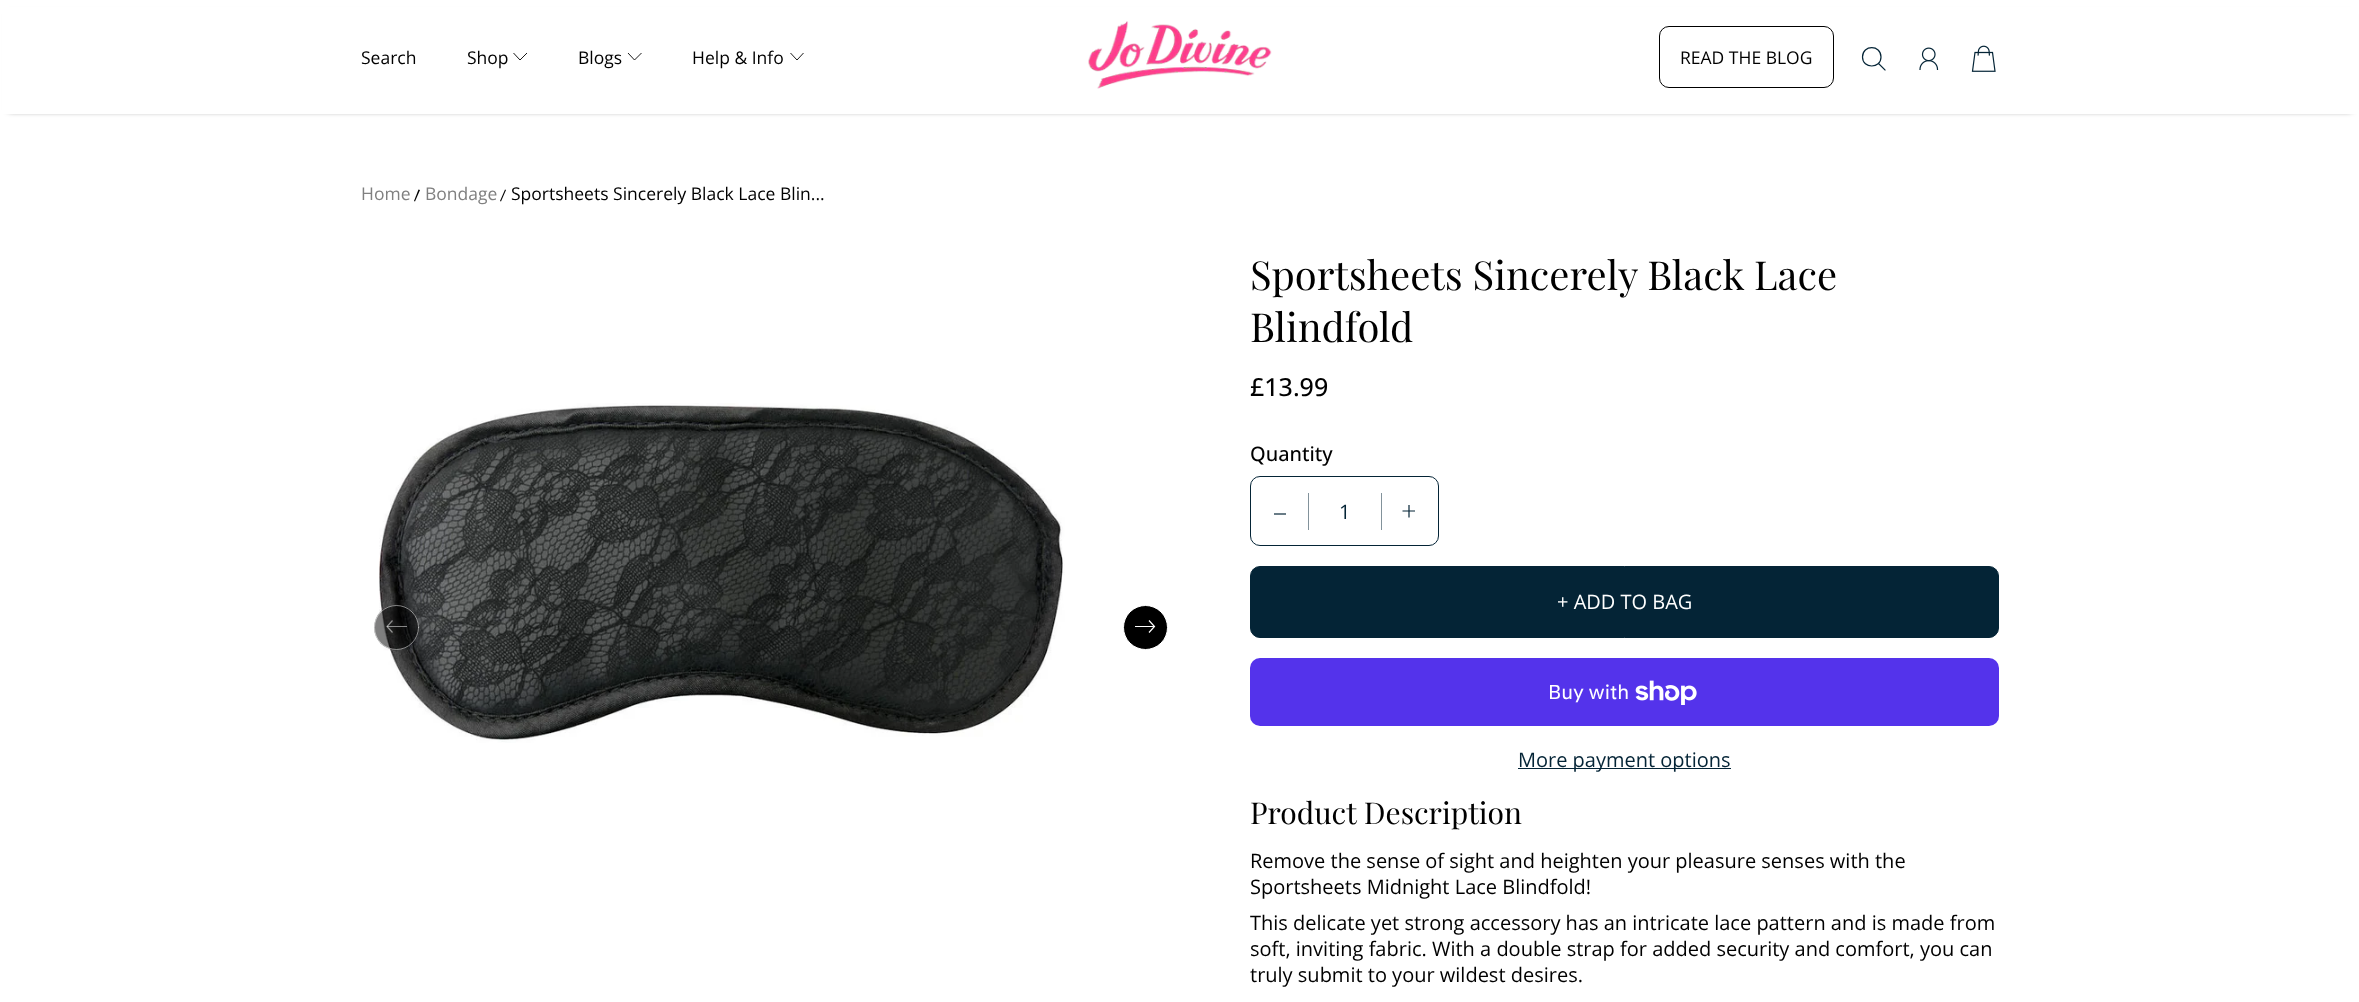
(async () => {
const canvas = document.querySelector("canvas")
canvas.width = 2359
canvas.height = 1002
const c = canvas.getContext("2d")
c.miterLimit = 4
c.fontKerning = "normal"
function T(s,x,y){c.fillText(s,x,y)}
function R(x,y,w,h){c.fillRect(x,y,w,h)}
function Q(x,y,w,h,r){c.beginPath();c.roundRect(x,y,w,h,r);c.fill()}
async function I(src,x,y,w,h){const img=new Image();img.src=src;await img.decode();c.drawImage(img,x,y,w,h)}
let path
c.fillStyle="#fff"
R(0,0,2359,1002)
c.fillStyle="#000"
c.filter="blur(3px)"
c.beginPath()
c.rect(9,14,2342,96)
c.fill()
c.filter="none"
c.fillStyle="#fff"
R(2,7,2356,107)
c.font="17.5px Open Sans"
c.fillStyle="#000"
T("Search",361,64)
T("Shop",467,64)
path = new Path2D("M527 53l-7 7l-6.5-7")
c.strokeStyle="#000"
c.lineWidth=0.9
c.stroke(path)
T("Blogs",578,64)
path = new Path2D("M641.5 53l-7 7l-6.5-7")
c.stroke(path)
T("Help & Info",692,64)
path = new Path2D("M803.5 53l-6.5 7l-6.5-7")
c.stroke(path)
await I("1.png",1088,21,184,68)
c.beginPath()
c.roundRect(1659.5,26.5,174,61,9.5)
c.lineWidth=1
c.stroke()
T("READ THE BLOG",1680,64)
path = new Path2D("M1879 64l6 6")
c.strokeStyle="#042436"
c.lineWidth=1.2
c.lineCap="square"
c.lineJoin="round"
c.stroke(path)
path = new Path2D("M1881 57c0-12.5-18.5-12.5-18.5 0c0 12 18.5 12 18.5 0z")
c.lineCap="round"
c.stroke(path)
await I("2.png",1919,47,20,23)
await I("3.png",1971,45,25,27)
c.fillStyle="#808080"
T("Home",361,200)
c.fillStyle="#000"
path = new Path2D("M418.5 189.5l1.5 .5l-5 11.5l-1-.5z")
c.fill(path)
c.fillStyle="#808080"
T("Bondage",425,200)
c.fillStyle="#000"
path = new Path2D("M505 189.5l1 .5l-5 11.5l-1-.5z")
c.fill(path)
T("Sportsheets Sincerely Black Lace Blin...",511,200)
await I("4.png",379,403,686,340)
c.fillStyle="#00000080"
c.beginPath()
c.arc(396.5,627.5,22.5,0,7)
c.fill()
c.beginPath()
c.arc(396.5,627.5,22,0,7)
c.strokeStyle="#ffffff80"
c.lineWidth=1
c.stroke()
path = new Path2D("M392.5 620.5l-5.5 6l5.5 6")
c.lineWidth=1.2
c.lineCap="butt"
c.lineJoin="miter"
c.stroke(path)
c.fillStyle="#ffffff80"
R(387,626,20,1)
c.fillStyle="#000"
c.beginPath()
c.arc(1145.5,627.5,22,0,7)
c.fill()
c.strokeStyle="#fff"
c.lineWidth=1
c.stroke()
path = new Path2D("M1149 620.5l5.5 6l-5.5 6")
c.lineWidth=1.2
c.stroke(path)
c.fillStyle="#fff"
R(1135,626,20,1)
c.font="40px Playfair Display"
c.fillStyle="#000"
T("Sportsheets Sincerely Black Lace",1250,290)
T("Blindfold",1250,342)
c.font="500 25px Open Sans"
T("£13.99",1250,396)
c.font="500 20px Open Sans"
T("Quantity",1250,461)
c.beginPath()
c.roundRect(1250.5,476.5,188,69,9.5)
c.strokeStyle="#042436"
c.lineWidth=1
c.stroke()
path = new Path2D("M1274 514h12")
c.lineWidth=1.2
c.stroke(path)
c.fillStyle="#82929b"
R(1381,493,1,37)
R(1308,493,1,37)
c.font="20px Open Sans"
c.fillStyle="#042436"
T("1",1339,519)
path = new Path2D("M1402.5 511h12.5m-6-6v12.5")
c.stroke(path)
c.beginPath()
c.roundRect(1250.5,566.5,748,71,9.5)
c.fill()
c.lineWidth=1
c.stroke()
c.fillStyle="#fff"
T("+ ADD TO BAG",1557,609)
c.fillStyle="#5433eb"
Q(1250,658,749,68,10)
c.font="20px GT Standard"
c.fillStyle="#fff"
T("Buy with",1548,699)
await I("5.png",1635,680,62,25)
c.fillStyle="#042436"
R(1518,768,213,1)
c.font="20px Open Sans"
T("More payment options",1518,767)
c.font="30px Playfair Display"
c.fillStyle="#000"
T("Product Description",1250,824)
c.font="20px Open Sans"
T("Remove the sense of sight and heighten your pleasure senses with the",1250,868)
T("Sportsheets Midnight Lace Blindfold!",1250,894)
T("This delicate yet strong accessory has an intricate lace pattern and is made from",1250,930)
T("soft, inviting fabric. With a double strap for added security and comfort, you can",1250,956)
T("truly submit to your wildest desires.",1250,982)
})()
